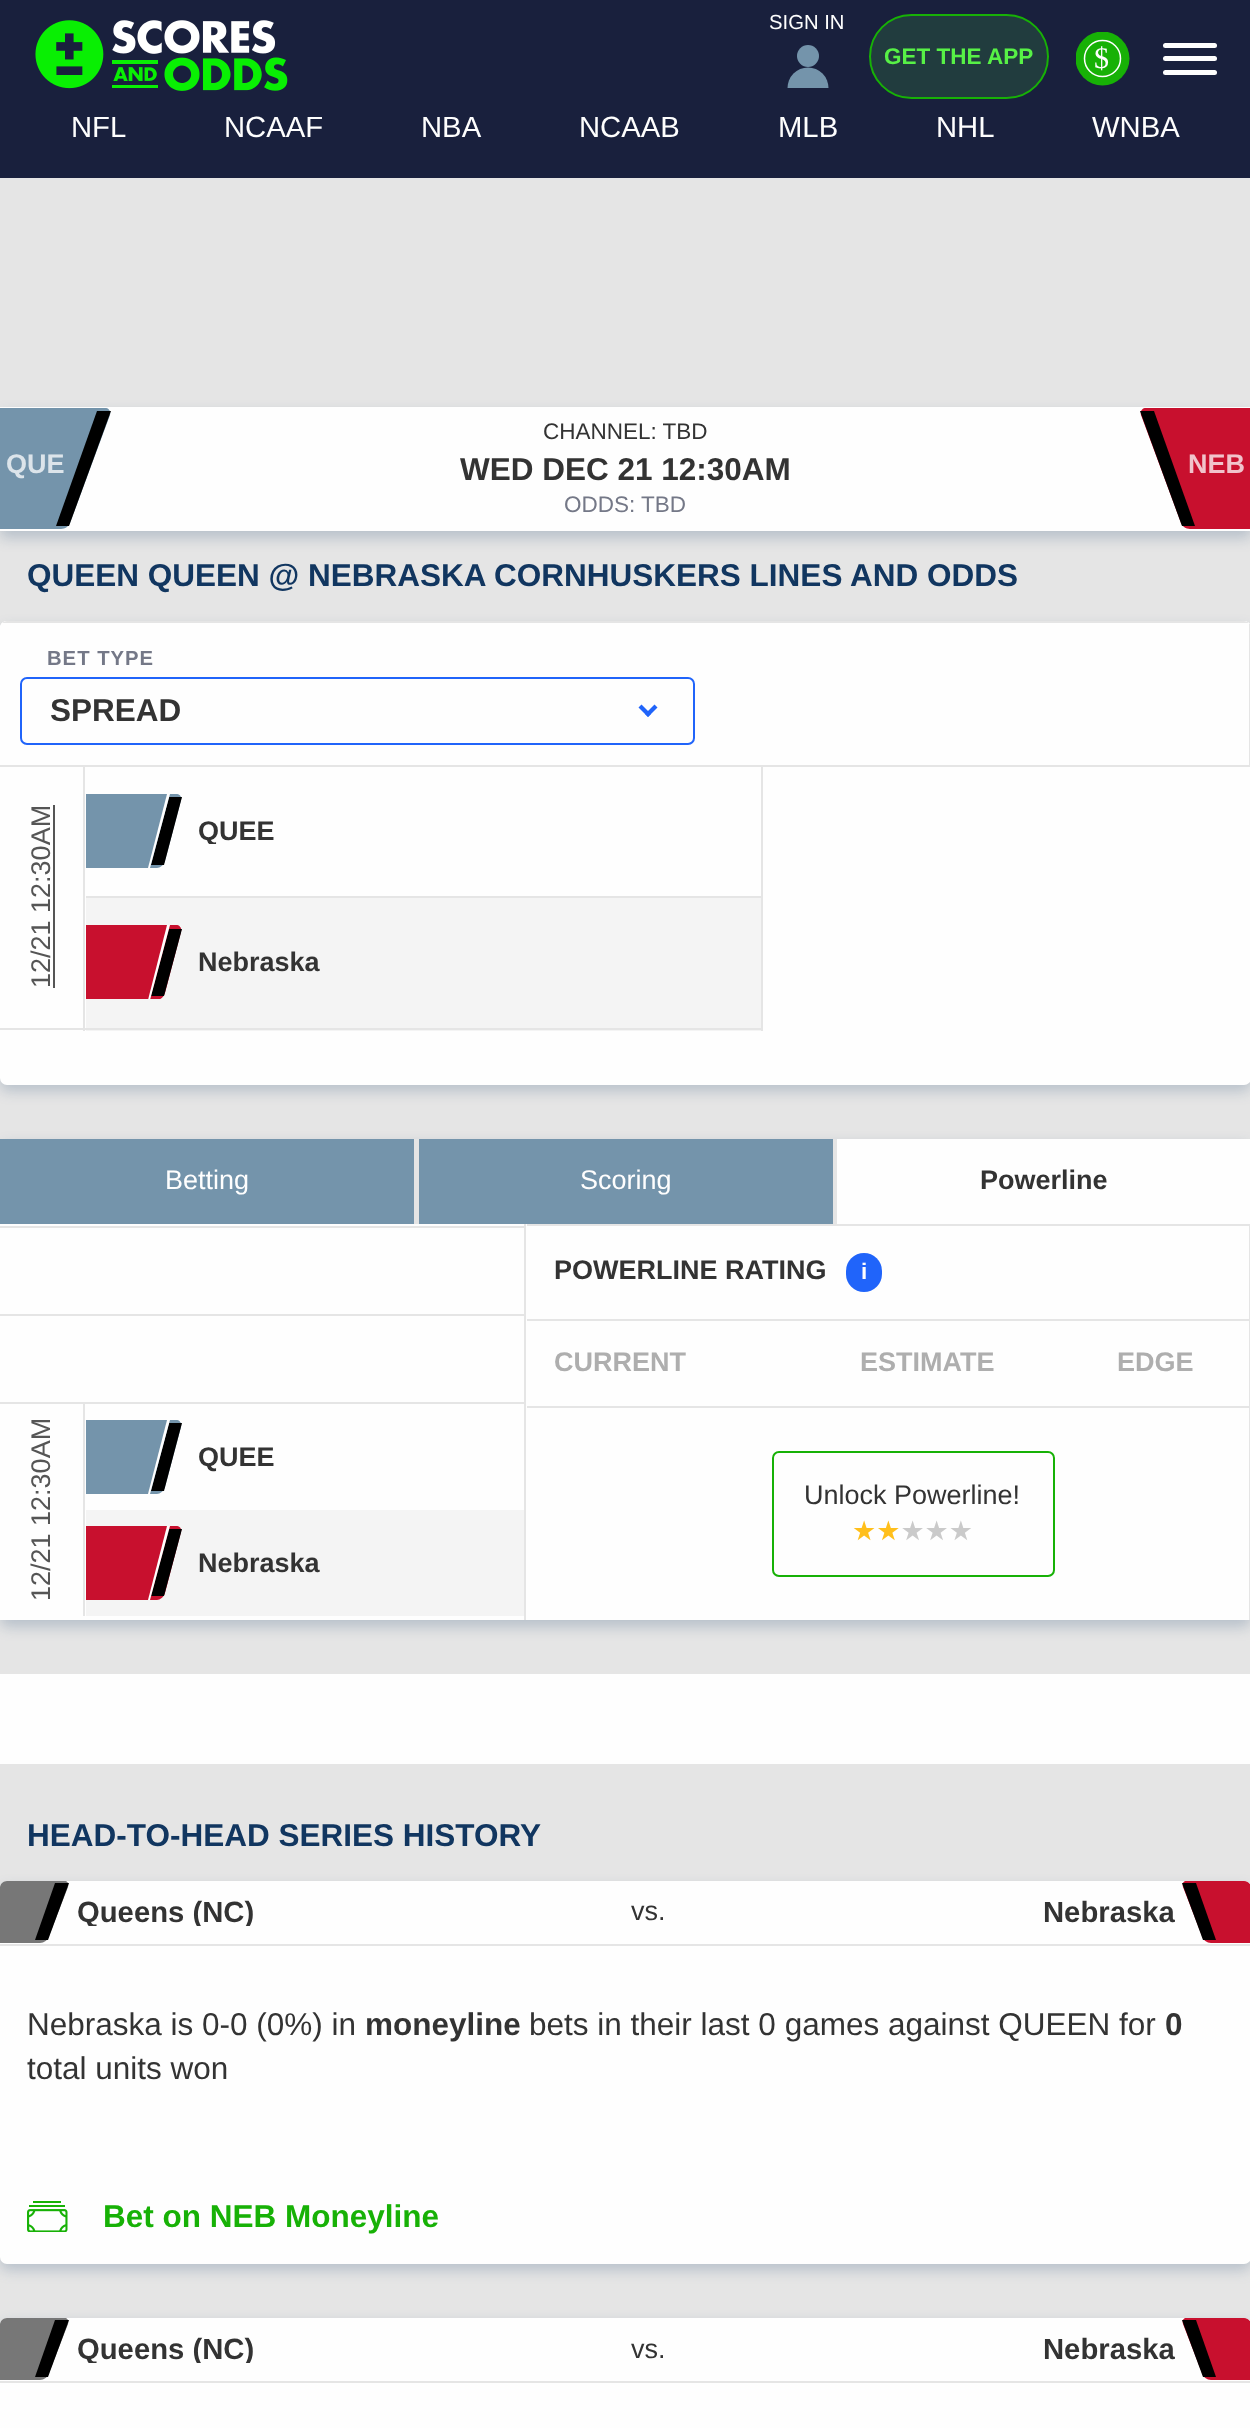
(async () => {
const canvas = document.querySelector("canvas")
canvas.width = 1250
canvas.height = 2428
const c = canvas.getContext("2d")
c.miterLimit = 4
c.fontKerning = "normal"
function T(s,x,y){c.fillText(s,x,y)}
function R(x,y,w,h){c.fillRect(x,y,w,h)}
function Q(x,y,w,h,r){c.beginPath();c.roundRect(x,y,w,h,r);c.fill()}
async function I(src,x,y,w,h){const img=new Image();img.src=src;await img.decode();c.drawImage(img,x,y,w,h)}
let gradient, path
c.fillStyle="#e5e5e5"
R(0,0,1250,2428)
c.fillStyle="#19203d"
R(0,0,1250,178)
c.font="20.25px Liberation Sans"
c.fillStyle="#fefefe"
T("SIGN IN",769,29)
c.fillStyle="#7494ab"
c.beginPath()
c.arc(808,56,11,0,7)
c.fill()
c.save()
c.beginPath()
c.rect(774,34,68,54)
c.clip()
c.beginPath()
c.arc(808,88,20.5,0,7)
c.fill()
c.restore()
c.fillStyle="#213c3e"
c.beginPath()
c.roundRect(870,15,178,83,41.5)
c.fill()
c.strokeStyle="#17b106"
c.lineWidth=2
c.stroke()
c.font="bold 22.5px Liberation Sans"
c.fillStyle="#57f146"
T("GET THE APP",884,64)
c.save()
c.beginPath()
c.rect(1076,32,54,54)
c.clip()
c.fillStyle="#17b106"
c.beginPath()
c.arc(1102.5,58.5,27,0,7)
c.fill()
c.restore()
c.beginPath()
c.arc(1102.5,58.5,18,0,7)
c.strokeStyle="#fff"
c.lineWidth=1.5
c.stroke()
c.font="30px Liberation Serif"
c.fillStyle="#fefefe"
T("$",1094,68)
await I("1.png",35,20,253,71)
Q(1163,43,54,5,2.5)
Q(1163,56,54,5,2.5)
Q(1163,70,54,5,2.5)
c.font="29.25px Liberation Sans"
T("NFL",71,137)
T("NCAAF",224,137)
T("NBA",421,137)
T("NCAAB",579,137)
T("MLB",778,137)
T("NHL",936,137)
T("WNBA",1092,137)
c.fillStyle="#002c5f33"
c.filter="blur(7px)"
c.beginPath()
c.rect(0,414,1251,124)
c.fill()
c.filter="none"
c.fillStyle="#fefefe"
R(0,407,1250,124)
c.fillStyle="#7494ab"
path = new Path2D("M-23 408h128c4 0 6 3 5 7l-40 108c-1 3-5 6-9 6h-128z")
c.fill(path)
c.fillStyle="#000"
path = new Path2D("M97 411h14l-42 115h-13z")
c.fill(path)
c.font="bold 27px Liberation Sans"
c.fillStyle="#dce4ea"
T("QUE",6,473)
c.font="22.5px Liberation Sans"
c.fillStyle="#333"
T("CHANNEL: TBD",543,439)
c.font="bold 31.5px Liberation Sans"
T("WED DEC 21 12:30AM",460,480)
c.font="22.5px Liberation Sans"
c.fillStyle="#747887"
T("ODDS: TBD",564,512)
c.fillStyle="#c8102e"
path = new Path2D("M1146 408h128l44 121h-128c-4 0-8-3-9-6l-40-108c-1-4 1-7 5-7z")
c.fill(path)
c.fillStyle="#000"
path = new Path2D("M1140 411h14l41 115h-13z")
c.fill(path)
c.font="bold 27px Liberation Sans"
c.fillStyle="#f1c3cb"
T("NEB",1188,473)
c.font="bold 31.5px Liberation Sans"
c.fillStyle="#113660"
T("QUEEN QUEEN @ NEBRASKA CORNHUSKERS LINES AND ODDS",27,586)
c.fillStyle="#002c5f33"
c.filter="blur(7px)"
c.beginPath()
c.roundRect(0,628,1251,463,7)
c.fill()
c.filter="none"
c.fillStyle="#fefefe"
Q(0,621,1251,464,7)
path = new Path2D("M7 621h1237c4 0 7 3 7 7v403h-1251v-403c0-4 3-7 7-7z")
c.fill(path)
path = new Path2D("M7 621h1237c4 0 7 3 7 7v139h-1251v-139c0-4 3-7 7-7z")
c.fill(path)
c.save()
c.beginPath()
c.roundRect(0,621,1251,464,7)
c.clip()
c.fillStyle="#e5e5e5"
R(0,621,1250,2)
R(1249,621,1,146)
c.restore()
c.fillStyle="#e5e5e5"
R(0,765,1250,2)
c.letterSpacing="1px"
c.font="bold 20.25px Liberation Sans"
c.fillStyle="#747887"
T("BET TYPE",47,665)
c.beginPath()
c.roundRect(21,678,673,66,6)
c.strokeStyle="#2064fa"
c.lineWidth=2
c.stroke()
c.letterSpacing="0px"
c.font="bold 31.5px Liberation Sans"
c.fillStyle="#333"
T("SPREAD",50,721)
c.fillStyle="#2064fa"
path = new Path2D("M654.5 704.5l3 3l-9.5 9.5l-3-3z")
c.fill(path)
path = new Path2D("M641.5 704.5l9.5 9.5l-3 3l-9.5-9.5z")
c.fill(path)
c.fillStyle="#e5e5e5"
R(83,767,2,264)
R(0,1028,86,2)
c.font="27px Liberation Sans"
c.fillStyle="#555"
c.save()
c.translate(50,988)
c.rotate(-90 * Math.PI / 180)
c.fillText("12/21 12:30AM",0,0)
c.restore()
R(53,805,2,183)
c.fillStyle="#e5e5e5"
R(761,767,2,129)
c.save()
c.beginPath()
c.rect(86,794,189,75)
c.clip()
c.fillStyle="#7494ab"
path = new Path2D("M84 794h92c4 0 6 3 5 6l-16 61c-1 4-5 7-8 7h-93z")
c.fill(path)
c.restore()
c.fillStyle="#000"
path = new Path2D("M169 797h13l-18 68h-13z")
c.fill(path)
c.fillStyle="#fefefe"
path = new Path2D("M167 794h3l-20 74h-2z")
c.fill(path)
c.save()
c.beginPath()
c.rect(198,817,77,27)
c.clip()
c.font="bold 27px Liberation Sans"
c.fillStyle="#333"
T("QUEE",198,840)
c.restore()
c.fillStyle="#f4f4f4"
R(86,898,675,133)
c.fillStyle="#e5e5e5"
R(86,896,677,2)
R(761,896,2,135)
R(86,1028,677,2)
c.save()
c.beginPath()
c.rect(86,925,234,74)
c.clip()
c.fillStyle="#c8102e"
path = new Path2D("M84 925h92c4 0 6 3 5 7l-16 61c-1 4-5 7-8 7h-93z")
c.fill(path)
c.restore()
c.fillStyle="#000"
path = new Path2D("M169 929h13l-18 67h-13z")
c.fill(path)
c.save()
c.beginPath()
c.rect(86,925,234,74)
c.clip()
c.fillStyle="#fefefe"
path = new Path2D("M167 925h3l-20 75h-2z")
c.fill(path)
c.restore()
c.font="bold 27px Liberation Sans"
c.fillStyle="#333"
T("Nebraska",198,971)
c.fillStyle="#002c5f33"
c.filter="blur(7px)"
c.beginPath()
c.roundRect(0,1145,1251,482,7)
c.fill()
c.filter="none"
c.fillStyle="#7494ab"
R(0,1139,414,85)
c.font="27px Liberation Sans"
c.fillStyle="#fefefe"
T("Betting",165,1189)
c.fillStyle="#7494ab"
R(419,1139,414,85)
c.fillStyle="#e5e5e5"
R(414,1139,5,85)
c.fillStyle="#fefefe"
T("Scoring",580,1189)
c.fillStyle="#e5e5e5"
R(833,1139,4,85)
c.fillStyle="#fefefe"
R(837,1139,413,85)
c.font="bold 27px Liberation Sans"
c.fillStyle="#333"
T("Powerline",980,1189)
c.fillStyle="#fefefe"
R(527,1226,722,394)
R(0,1224,527,396)
c.fillStyle="#e5e5e5"
R(524,1224,2,396)
R(0,1226,524,2)
R(0,1314,524,2)
R(0,1402,524,2)
R(83,1404,2,212)
c.font="27px Liberation Sans"
c.fillStyle="#555"
c.save()
c.translate(50,1601)
c.rotate(-90 * Math.PI / 180)
c.fillText("12/21 12:30AM",0,0)
c.restore()
c.save()
c.beginPath()
c.rect(86,1420,189,74)
c.clip()
c.fillStyle="#7494ab"
path = new Path2D("M84 1420h92c4 0 6 3 5 7l-16 60c-1 4-5 7-8 7h-93z")
c.fill(path)
c.restore()
c.fillStyle="#000"
path = new Path2D("M169 1423h13l-18 68h-13z")
c.fill(path)
c.fillStyle="#fefefe"
path = new Path2D("M167 1420h3l-20 74h-2z")
c.fill(path)
c.font="bold 27px Liberation Sans"
c.fillStyle="#333"
T("QUEE",198,1466)
c.fillStyle="#f4f4f4"
R(86,1510,438,106)
c.save()
c.beginPath()
c.rect(86,1526,234,74)
c.clip()
c.fillStyle="#c8102e"
path = new Path2D("M84 1526h92c4 0 6 3 5 6l-16 61c-1 4-5 7-8 7h-93z")
c.fill(path)
c.restore()
c.fillStyle="#000"
path = new Path2D("M169 1529h13l-18 67h-13z")
c.fill(path)
c.fillStyle="#fefefe"
path = new Path2D("M167 1526h3l-20 74h-2z")
c.fill(path)
c.fillStyle="#333"
T("Nebraska",198,1572)
c.fillStyle="#e5e5e5"
R(1249,1224,1,396)
R(527,1224,722,2)
c.fillStyle="#333"
T("POWERLINE RATING",554,1279)
c.fillStyle="#2064fa"
Q(846,1253,36,39,18)
c.font="bold 22.5px Liberation Sans"
c.fillStyle="#fefefe"
T("i",861,1279)
c.fillStyle="#e5e5e5"
R(527,1319,722,2)
R(527,1406,722,2)
c.font="bold 27px Liberation Sans"
c.fillStyle="#aeaeae"
T("CURRENT",554,1371)
T("ESTIMATE",860,1371)
T("EDGE",1117,1371)
c.beginPath()
c.roundRect(773,1452,281,124,6)
c.strokeStyle="#17b106"
c.stroke()
c.font="27px Liberation Sans"
c.fillStyle="#333"
T("Unlock Powerline!",804,1504)
c.font="27px DejaVu Sans"
gradient = c.createLinearGradient(852,1531,973,1531)
gradient.addColorStop(.4,"#ffbf1b")
gradient.addColorStop(.4,"#cacaca")
gradient.addColorStop(1,"#cacaca")
c.fillStyle = gradient
T("★★★★★",852,1540)
c.fillStyle="#fefefe"
R(0,1674,1250,90)
c.font="bold 31.5px Liberation Sans"
c.fillStyle="#113660"
T("HEAD-TO-HEAD SERIES HISTORY",27,1846)
c.fillStyle="#002c5f33"
c.filter="blur(7px)"
c.beginPath()
c.roundRect(0,1888,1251,382,7)
c.fill()
c.filter="none"
c.fillStyle="#fefefe"
Q(0,1881,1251,383,7)
path = new Path2D("M7 1881h1237c4 0 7 3 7 7v58h-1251v-58c0-4 3-7 7-7z")
c.fill(path)
c.fillStyle="#e5e5e5"
R(0,1944,1250,2)
c.fillStyle="#777"
path = new Path2D("M7 1881h59c2 1 3 3 2 6l-19 49c-1 4-5 7-9 7h-40v-55c0-4 3-7 7-7z")
c.fill(path)
c.fillStyle="#000"
path = new Path2D("M55 1883h14l-21 57h-13z")
c.fill(path)
c.save()
c.beginPath()
c.rect(77,1897,177,29)
c.clip()
c.font="bold 29.25px Liberation Sans"
c.fillStyle="#333"
T("Queens (NC)",77,1922)
c.restore()
c.font="27px Liberation Sans"
c.fillStyle="#333"
T("vs.",631,1920)
c.font="bold 29.25px Liberation Sans"
T("Nebraska",1043,1922)
c.fillStyle="#c8102e"
path = new Path2D("M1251 1943h-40c-4 0-8-3-9-7l-19-49c-1-3 0-5 2-6h59c4 0 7 3 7 7z")
c.fill(path)
c.fillStyle="#000"
path = new Path2D("M1182 1883h14l20 57h-13z")
c.fill(path)
c.font="31.5px Liberation Sans"
c.fillStyle="#333"
T("Nebraska is 0-0 (0%) in",27,2035)
c.font="bold 31.5px Liberation Sans"
T("moneyline",365,2035)
c.font="31.5px Liberation Sans"
T("bets in their last 0 games against QUEEN for",529,2035)
c.font="bold 31.5px Liberation Sans"
T("0",1165,2035)
c.font="31.5px Liberation Sans"
T("total units won",27,2079)
await I("2.png",27,2201,41,31)
c.font="bold 31.5px Liberation Sans"
c.fillStyle="#17b106"
T("Bet on NEB Moneyline",103,2227)
c.fillStyle="#002c5f33"
c.filter="blur(7px)"
c.beginPath()
c.roundRect(0,2324,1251,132,7)
c.fill()
c.filter="none"
c.fillStyle="#fefefe"
Q(0,2318,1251,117,7)
path = new Path2D("M7 2318h1237c4 0 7 3 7 7v58h-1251v-58c0-4 3-7 7-7z")
c.fill(path)
c.fillStyle="#e5e5e5"
R(0,2381,1250,2)
c.fillStyle="#777"
path = new Path2D("M7 2318h59c2 1 3 3 2 6l-19 49c-1 4-5 7-9 7h-40v-55c0-4 3-7 7-7z")
c.fill(path)
c.fillStyle="#000"
path = new Path2D("M55 2320h14l-21 57h-13z")
c.fill(path)
c.save()
c.beginPath()
c.rect(77,2333,177,30)
c.clip()
c.font="bold 29.25px Liberation Sans"
c.fillStyle="#333"
T("Queens (NC)",77,2359)
c.restore()
c.font="27px Liberation Sans"
c.fillStyle="#333"
T("vs.",631,2358)
c.font="bold 29.25px Liberation Sans"
T("Nebraska",1043,2359)
c.fillStyle="#c8102e"
path = new Path2D("M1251 2380h-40c-4 0-8-3-9-7l-19-49c-1-3 0-5 2-6h59c4 0 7 3 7 7z")
c.fill(path)
c.fillStyle="#000"
path = new Path2D("M1182 2320h14l20 57h-13z")
c.fill(path)
})()
